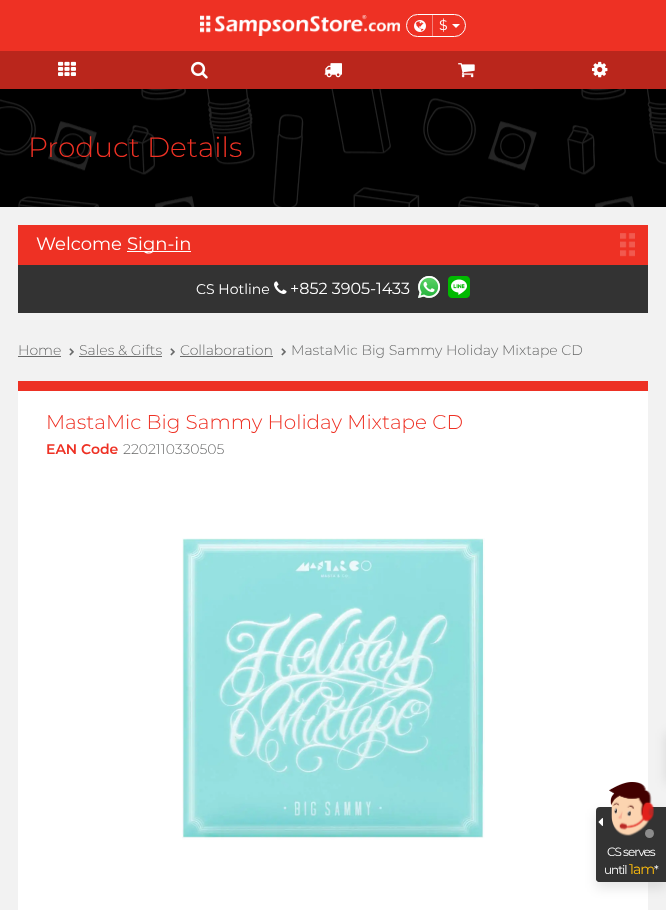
(async () => {
const canvas = document.querySelector("canvas")
canvas.width = 666
canvas.height = 910
const c = canvas.getContext("2d")
c.miterLimit = 4
c.fontKerning = "normal"
function T(s,x,y){c.fillText(s,x,y)}
function R(x,y,w,h){c.fillRect(x,y,w,h)}
async function I(src,x,y,w,h){const img=new Image();img.src=src;await img.decode();c.drawImage(img,x,y,w,h)}
let path
c.fillStyle="#f2f2f2"
R(0,0,666,910)
c.fillStyle="#ee3124"
R(0,0,666,51)
await I("1.png",200,15,200,21)
c.beginPath()
c.roundRect(406.5,14.5,59,22,11)
c.strokeStyle="#fff"
c.stroke()
await I("2.png",414,20,12,12)
c.fillStyle="#f5837c"
R(432,15,1,21)
c.font="14px Montserrat"
c.fillStyle="#fff"
T("$",439,30)
path = new Path2D("M452 24h8l-4 4z")
c.fill(path)
c.fillStyle="#ba261c"
R(0,51,666,38)
await I("3.png",58,61,18,15)
await I("4.png",191,61,17,18)
await I("5.png",324,63,18,15)
await I("6.png",458,63,17,15)
await I("7.png",592,61,16,17)
c.fillStyle="#000"
R(0,89,666,118)
await I("8.png",0,89,666,118)
c.font="300 28px Montserrat"
c.fillStyle="#ee3124"
T("Product Details",28,157)
c.fillStyle="#333"
R(18,265,630,48)
c.fillStyle="#ee3124"
R(18,225,630,40)
c.font="18px Montserrat"
c.fillStyle="#fff"
T("Welcome",36,250)
R(127,251,64,1)
T("Sign-in",127,250)
await I("9.png",620,233,15,24)
c.font="14px Montserrat"
T("CS Hotline",196,294)
await I("10.png",274,281,13,13)
c.font="16px Montserrat"
T("+852 3905-1433",290,294)
await I("11.png",418,276,22,22)
await I("12.png",448,276,22,22)
c.font="300 14px Montserrat"
c.fillStyle="#686969"
T("Home",18,355)
R(18,356,43,1)
await I("13.png",69,348,5,8)
T("Sales & Gifts",79,355)
R(79,356,83,1)
await I("13.png",170,348,5,8)
T("Collaboration",180,355)
R(180,356,93,1)
await I("13.png",281,348,5,8)
T("MastaMic Big Sammy Holiday Mixtape CD",291,355)
c.fillStyle="#fff"
R(18,391,630,519)
c.fillStyle="#ed3124"
R(18,381,630,10)
c.font="300 20px Montserrat"
c.fillStyle="#ee3124"
T("MastaMic Big Sammy Holiday Mixtape CD",46,429)
c.font="600 14px Montserrat"
T("EAN Code",46,454)
c.font="300 14px Montserrat"
c.fillStyle="#686969"
T("2202110330505",123,454)
await I("14.png",182,538,303,302)
c.fillStyle="#0000001a"
c.filter="blur(6px)"
c.beginPath()
c.rect(666,733,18,50)
c.fill()
c.filter="none"
c.filter="blur(6px)"
c.beginPath()
c.rect(596,813,70,75)
c.fill()
c.filter="none"
c.fillStyle="#333"
c.beginPath()
c.roundRect(596,807,70,75,[4,0,0,4])
c.fill()
await I("15.png",598,818,5,8)
c.fillStyle="#8c8c8c"
c.beginPath()
c.arc(649.5,833.5,4.5,0,7)
c.fill()
await I("16.png",609,782,45,54)
await I("17.png",614,807,17,10)
c.fillStyle="#333"
c.beginPath()
c.roundRect(596,840,70,42,[0,0,0,4])
c.fill()
c.letterSpacing="-1px"
c.font="12px Montserrat"
c.fillStyle="#fff"
T("CS serves",607,856)
T("until",604,874)
c.font="14px Montserrat"
c.fillStyle="#ffbe0d"
T("1am",629,874)
c.font="12px Montserrat"
c.fillStyle="#fff"
T("*",654,874)
})()
